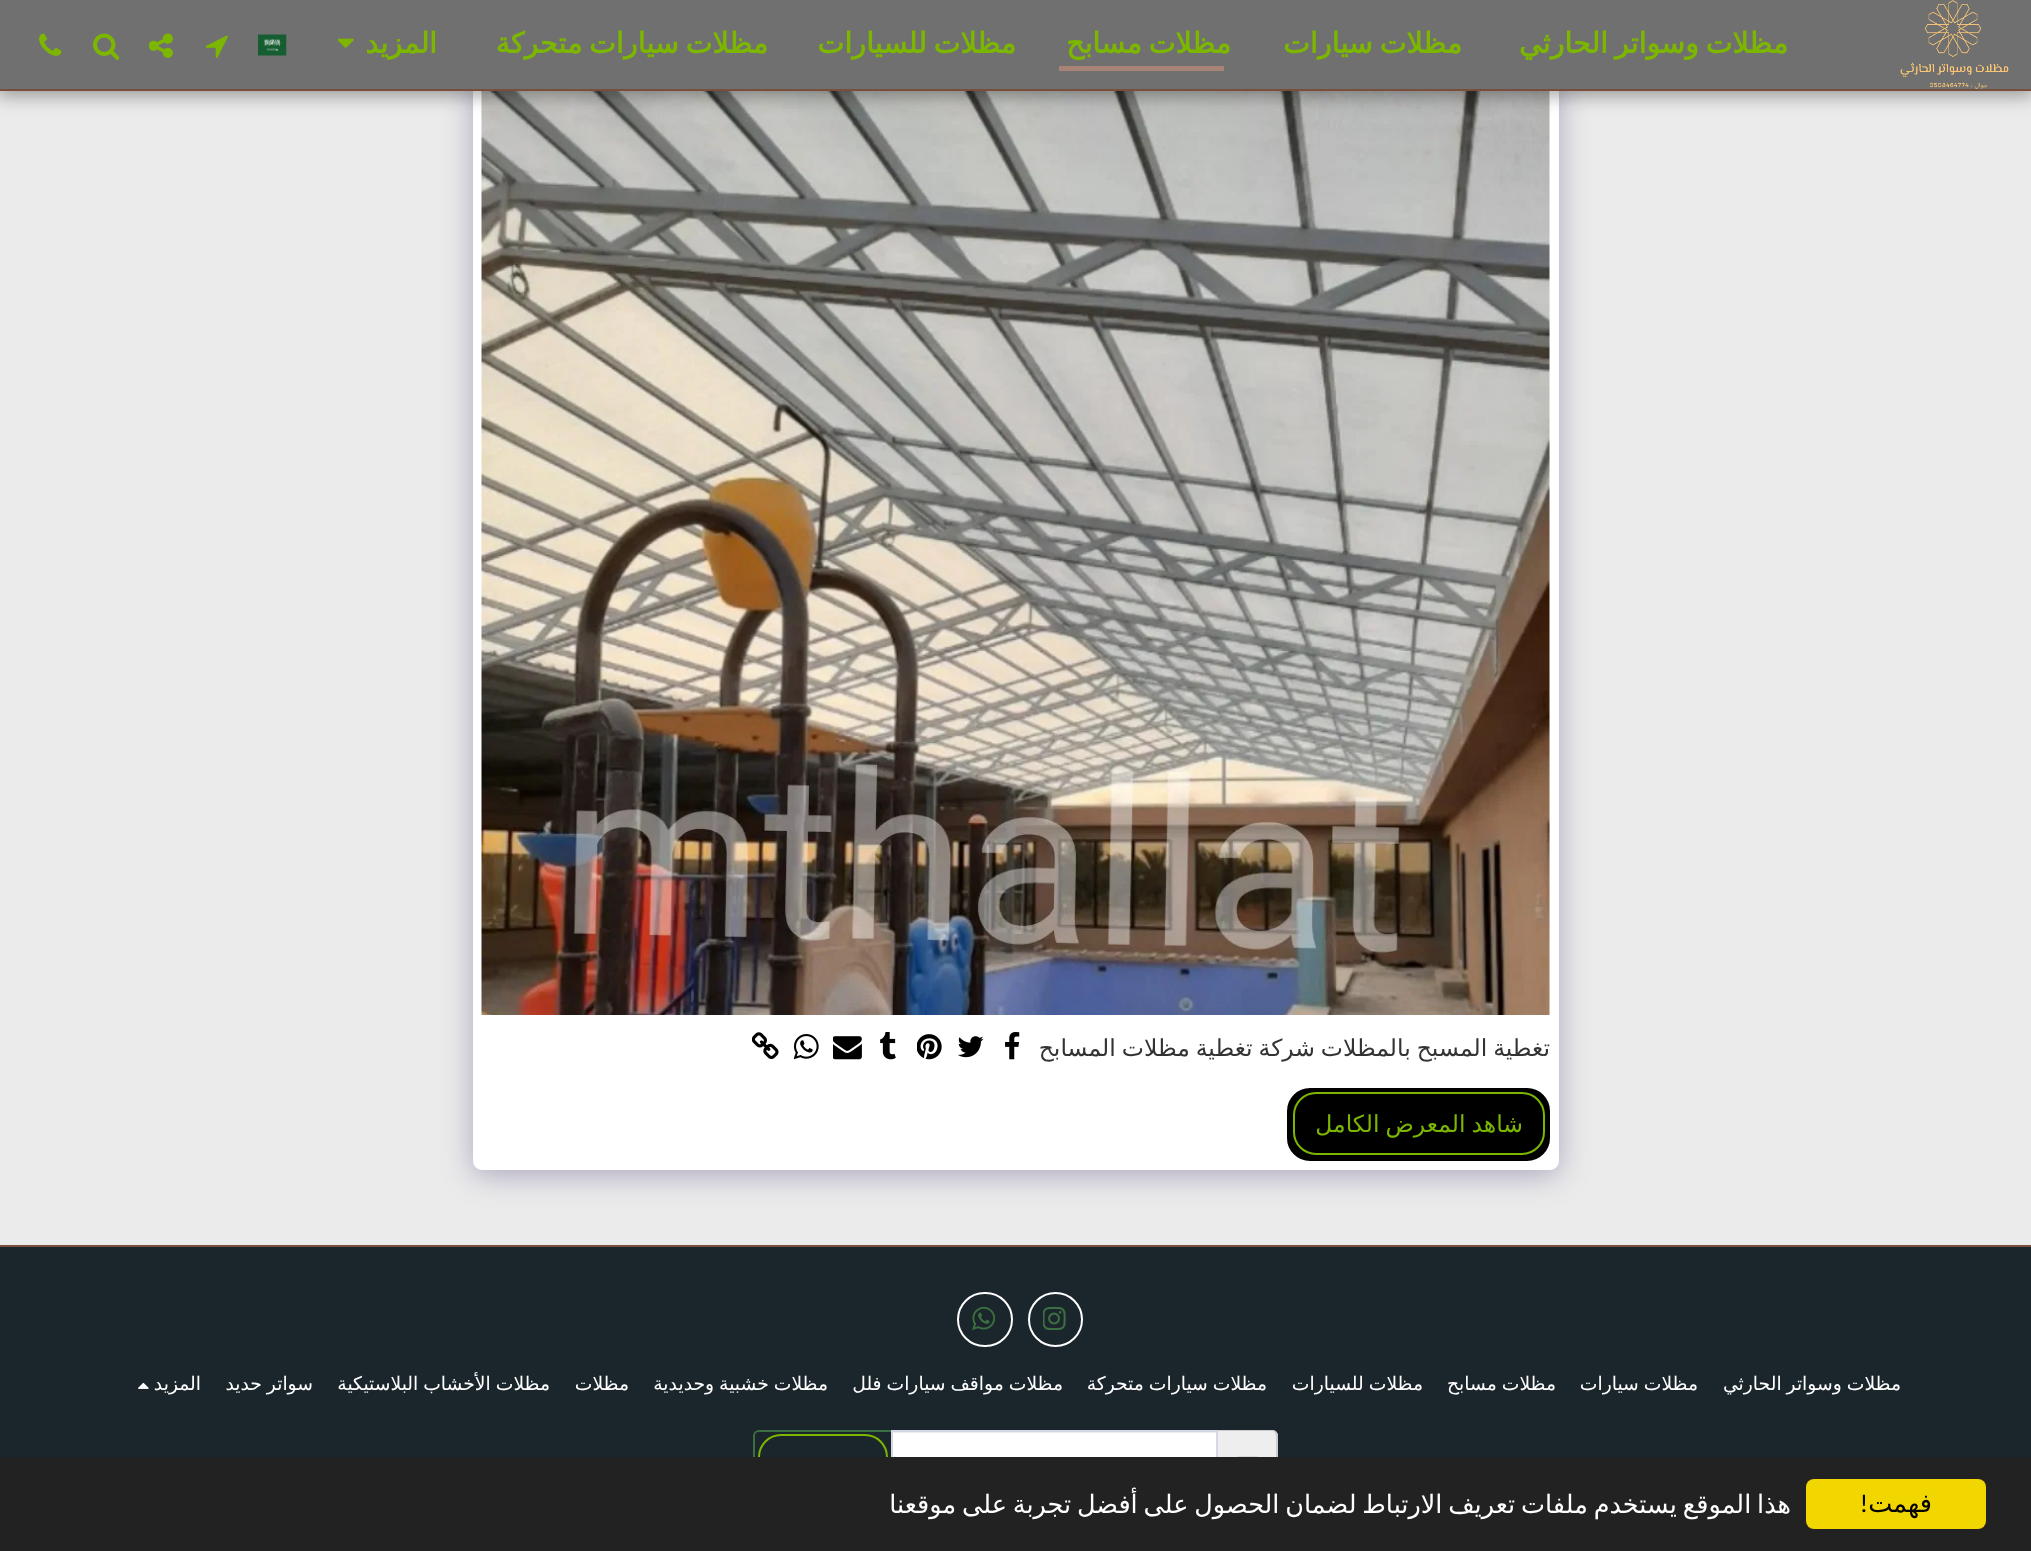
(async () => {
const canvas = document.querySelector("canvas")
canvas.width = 2031
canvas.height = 1551
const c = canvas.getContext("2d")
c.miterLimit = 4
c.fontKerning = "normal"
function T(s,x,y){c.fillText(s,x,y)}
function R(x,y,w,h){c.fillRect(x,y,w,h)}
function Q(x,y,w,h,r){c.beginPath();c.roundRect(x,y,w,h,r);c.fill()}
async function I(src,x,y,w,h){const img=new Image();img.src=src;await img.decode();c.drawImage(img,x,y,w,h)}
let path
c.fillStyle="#784e3d"
R(0,0,2031,1551)
c.fillStyle="#ebebeb"
R(0,91,2031,1154)
c.fillStyle="#4d3f7a66"
c.filter="blur(15px)"
c.beginPath()
c.roundRect(473,81,1086,1094,9)
c.fill()
c.filter="none"
c.fillStyle="#fff"
Q(473,77,1086,1093,9)
await I("8.png",481,91,1069,924)
c.fillStyle="#00000059"
c.filter="blur(9px)"
c.beginPath()
c.rect(-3,0,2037,96)
c.fill()
c.filter="none"
c.fillStyle="#707070"
R(0,0,2031,89)
c.fillStyle="#784e3d"
R(0,89,2031,2)
await I("1.png",1900,0,109,89)
c.letterSpacing="0.75px"
c.wordSpacing="-3px"
c.direction="rtl"
c.font="bold 28.5px DejaVu Sans"
c.fillStyle="#7cb600"
T("مظلات وسواتر الحارثي",1788,53)
T("مظلات سيارات",1462,53)
T("مظلات مسابح",1231,53)
c.fillStyle="#a88476"
R(1059,66,165,5)
c.fillStyle="#7cb600"
T("مظلات للسيارات",1016,53)
T("مظلات سيارات متحركة",768,53)
c.wordSpacing="0px"
T("المزيد",437,53)
await I("2.png",338,38,16,10)
await I("3.png",258,34,29,22)
await I("4.png",206,35,22,23)
await I("5.png",149,33,24,25)
await I("6.png",93,33,26,27)
await I("7.png",39,33,23,23)
c.letterSpacing="0px"
c.wordSpacing="-1.5px"
c.font="23.5px DejaVu Sans"
c.fillStyle="#333"
T("تغطية المسبح بالمظلات",1550,1056)
T("شركة تغطية مظلات المسابح",1315,1056)
await I("9.png",1005,1032,15,28)
await I("10.png",957,1036,27,22)
await I("11.png",917,1034,25,26)
await I("12.png",880,1032,16,28)
await I("13.png",833,1036,29,24)
await I("14.png",794,1034,25,26)
await I("15.png",752,1032,27,27)
c.fillStyle="#000"
c.beginPath()
c.roundRect(1288,1089,261,71,22)
c.fill()
c.strokeStyle="#000"
c.lineWidth=2
c.stroke()
c.beginPath()
c.roundRect(1294,1093,250,61,22)
c.strokeStyle="#7cb600"
c.stroke()
c.fillStyle="#7cb600"
T("شاهد المعرض الكامل",1523,1132)
c.fillStyle="#1b262c"
R(0,1247,2031,210)
c.beginPath()
c.arc(1055.5,1319.5,26.5,0,7)
c.strokeStyle="#fff"
c.stroke()
await I("16.png",1043,1306,23,25)
c.beginPath()
c.roundRect(958,1293,54,53,26.5)
c.stroke()
await I("17.png",972,1306,24,24)
c.wordSpacing="-1px"
c.font="18.75px DejaVu Sans"
c.fillStyle="#fff"
T("مظلات وسواتر الحارثي",1901,1390)
T("مظلات سيارات",1698,1390)
T("مظلات مسابح",1556,1390)
T("مظلات للسيارات",1423,1390)
T("مظلات سيارات متحركة",1267,1390)
T("مظلات مواقف سيارات فلل",1063,1390)
T("مظلات خشبية وحديدية",828,1390)
c.wordSpacing="0px"
T("مظلات",629,1390)
c.wordSpacing="-1px"
T("مظلات الأخشاب البلاستيكية",550,1390)
T("سواتر حديد",313,1390)
c.wordSpacing="0px"
T("المزيد",201,1390)
await I("18.png",138,1382,11,7)
c.fillStyle="#eee"
c.beginPath()
c.roundRect(1218,1430,60,73,[0,6,6,0])
c.fill()
c.fillStyle="#ccc"
path = new Path2D("M1218 1430h54c3 0 6 2 6 6v61c0 3-3 6-6 6h-54zm0 1h54c2 0 4 2 4 5v61c0 2-2 5-4 5h-54z")
c.fill(path,"evenodd")
await I("19.png",1237,1456,21,1)
c.fillStyle="#fff"
R(893,1433,323,24)
c.fillStyle="#ececec"
R(893,1432,324,1)
c.beginPath()
c.roundRect(754,1431,138,71,[5,0,0,5])
c.strokeStyle="#3b6e40"
c.stroke()
c.strokeStyle="#d4d7e5"
c.strokeRect(892,1431,325,71)
c.beginPath()
c.roundRect(759,1435,128,61,22)
c.strokeStyle="#7cb600"
c.stroke()
c.fillStyle="#222"
R(0,1457,2031,94)
c.fillStyle="#f1d600"
Q(1806,1479,180,50,8)
c.font="25.5px DejaVu Sans"
c.fillStyle="#000"
T("فهمت",1932,1512)
c.font="25.5px Carlito"
T("!",1868,1512)
c.wordSpacing="-2.25px"
c.font="25.5px DejaVu Sans"
c.fillStyle="#fff"
T("هذا الموقع يستخدم ملفات تعريف الارتباط لضمان الحصول على أفضل تجربة على موقعنا",1791,1513)
})()
